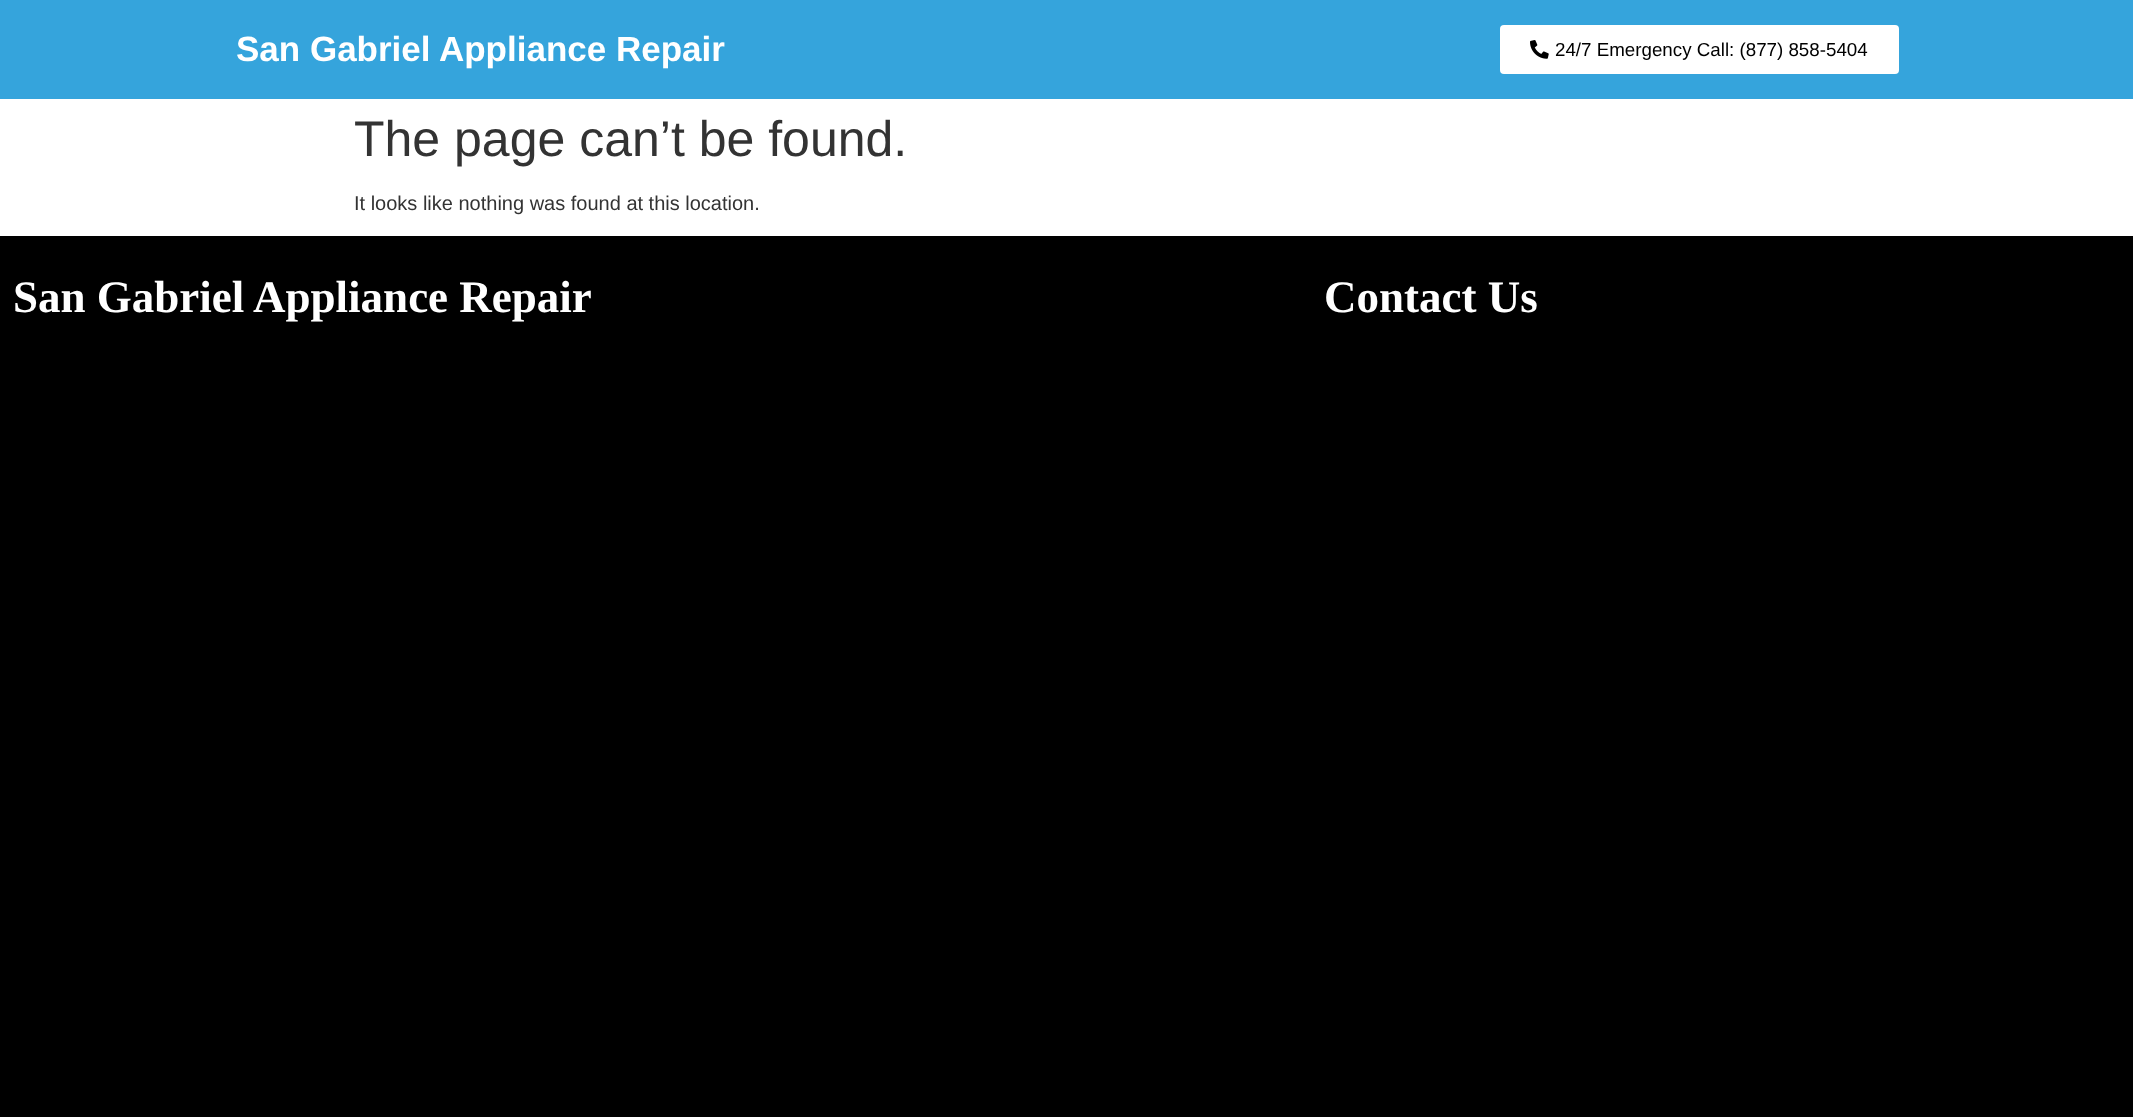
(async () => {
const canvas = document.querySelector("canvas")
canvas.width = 2133
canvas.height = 1117
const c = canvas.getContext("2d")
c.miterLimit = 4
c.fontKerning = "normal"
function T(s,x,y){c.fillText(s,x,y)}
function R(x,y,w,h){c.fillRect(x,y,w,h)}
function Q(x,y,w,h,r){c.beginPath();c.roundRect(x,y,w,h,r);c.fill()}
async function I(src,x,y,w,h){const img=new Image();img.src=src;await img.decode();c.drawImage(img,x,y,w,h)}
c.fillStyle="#fff"
R(0,0,2133,1117)
c.fillStyle="#35a4dc"
R(0,0,2133,99)
c.font="bold 35px Liberation Sans"
c.fillStyle="#fff"
T("San Gabriel Appliance Repair",236,61)
Q(1500,25,399,49,4)
await I("1.png",1530,40,19,19)
c.font="18.75px Liberation Sans"
c.fillStyle="#000"
T("24/7 Emergency Call: (877) 858-5404",1555,56)
c.font="50px Liberation Sans"
c.fillStyle="#333"
T("The page can’t be found.",354,156)
c.font="20px Liberation Sans"
T("It looks like nothing was found at this location.",354,210)
c.fillStyle="#000"
R(0,236,2133,881)
c.font="bold 45px Liberation Serif"
c.fillStyle="#fff"
T("San Gabriel Appliance Repair",13,312)
T("Contact Us",1324,312)
})()
